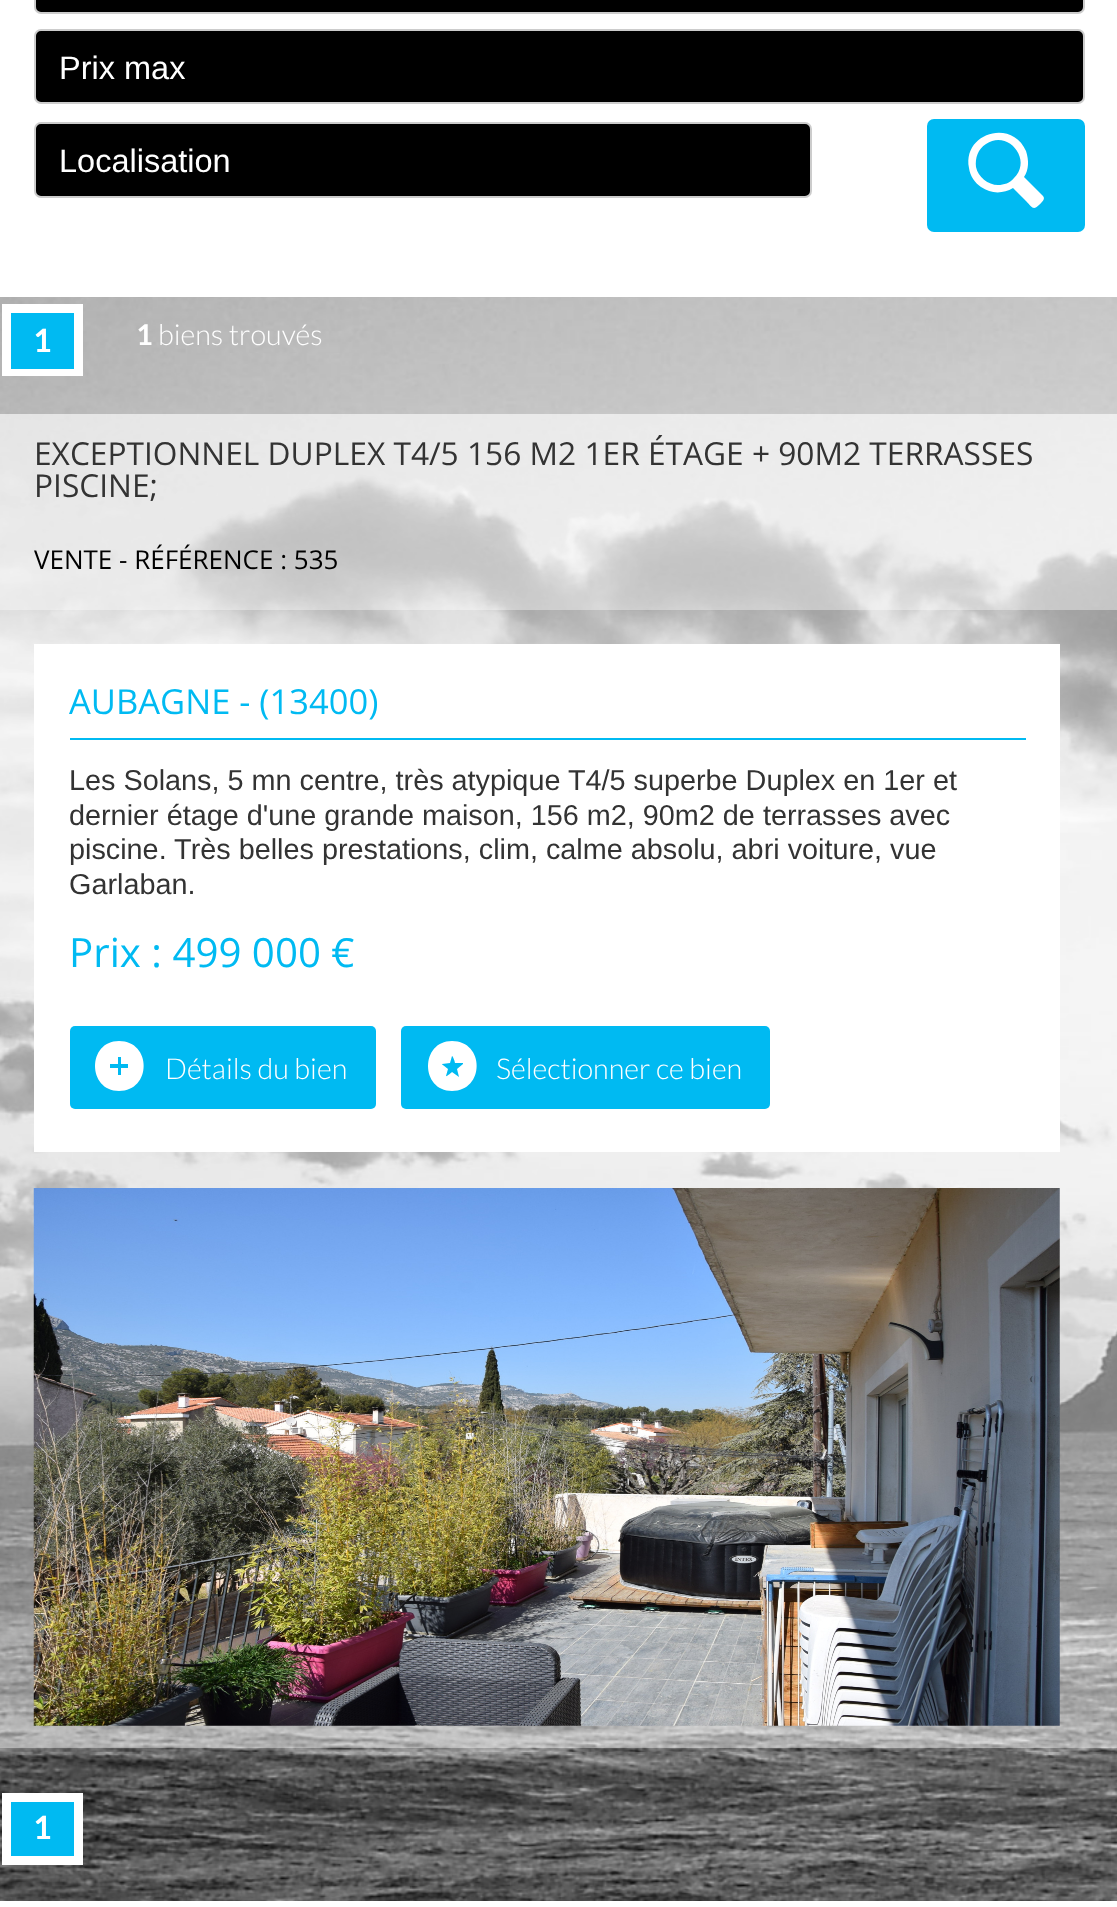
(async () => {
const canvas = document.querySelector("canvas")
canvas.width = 1117
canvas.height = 1907
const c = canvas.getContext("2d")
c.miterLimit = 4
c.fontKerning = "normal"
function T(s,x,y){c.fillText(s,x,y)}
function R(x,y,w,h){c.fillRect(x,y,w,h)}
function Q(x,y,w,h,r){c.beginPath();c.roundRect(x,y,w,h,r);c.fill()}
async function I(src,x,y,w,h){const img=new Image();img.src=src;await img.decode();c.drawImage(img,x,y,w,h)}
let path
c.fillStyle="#fff"
R(0,0,1117,1907)
c.fillStyle="#000"
c.beginPath()
c.roundRect(35,-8,1049,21,6)
c.fill()
c.strokeStyle="#ccc"
c.lineWidth=2
c.stroke()
c.beginPath()
c.roundRect(35,30,1049,73,6)
c.fill()
c.stroke()
c.font="32.5px Liberation Sans"
c.fillStyle="#fff"
T("Prix max",59,79)
c.fillStyle="#000"
c.beginPath()
c.roundRect(35,123,776,74,6)
c.fill()
c.stroke()
c.fillStyle="#fff"
T("Localisation",59,172)
c.fillStyle="#00baf2"
Q(927,119,158,113,7)
c.fillStyle="#fff"
path = new Path2D("M1043 196l-19-19c5-7 5-17 2-26c-14-33-64-18-57 17c1 8 6 15 12 19c10 7 22 7 32 1l13 13c6 6 7 10 13 4c2-2 7-6 4-9zm-45-11c-10 0-20-8-22-18c-1-9 2-18 10-23c22-15 47 16 28 34c-4 5-10 7-16 7z")
c.fill(path)
await I("2.png",0,297,1117,1604)
R(2,304,81,72)
c.fillStyle="#00baf2"
R(11,313,63,56)
c.font="bold 32px Lato"
c.fillStyle="#fff"
T("1",33,352)
c.font="bold 28.8px Lato"
T("1",136,345)
c.font="300 28.8px Lato"
T("biens trouvés",158,345)
c.fillStyle="#ffffff66"
R(0,414,1117,1334)
R(0,414,1117,196)
c.font="31.7px Open Sans"
c.fillStyle="#333"
T("EXCEPTIONNEL DUPLEX T4/5 156 M2 1ER ÉTAGE + 90M2 TERRASSES",34,465)
T("PISCINE;",34,497)
c.font="26px Open Sans"
c.fillStyle="#000"
T("VENTE - RÉFÉRENCE : 535",34,569)
c.fillStyle="#fff"
R(34,644,1026,508)
c.font="34.5px Open Sans"
c.fillStyle="#00baf2"
T("AUBAGNE - (13400)",69,714)
R(70,738,956,2)
c.font="28.8px Liberation Sans"
c.fillStyle="#333"
T("Les Solans, 5 mn centre, très atypique T4/5 superbe Duplex en 1er et",69,790)
T("dernier étage d'une grande maison, 156 m2, 90m2 de terrasses avec",69,825)
T("piscine. Très belles prestations, clim, calme absolu, abri voiture, vue",69,859)
T("Garlaban.",69,894)
c.font="40.25px Open Sans"
c.fillStyle="#00baf2"
T("Prix : 499 000 €",69,967)
Q(70,1026,306,83,5)
c.fillStyle="#fff"
path = new Path2D("M119 1041c-32 0-32 50 0 50c33 0 33-50 0-50zm9 27h-7v7h-3v-7h-8v-4h8v-7h3v7h7z")
c.fill(path)
c.font="300 28.8px Lato"
T("Détails du bien",165,1079)
c.fillStyle="#00baf2"
Q(401,1026,369,83,5)
c.fillStyle="#fff"
path = new Path2D("M452 1041c-32 0-32 50 0 50c33 0 33-50 0-50zm11 23l-6 5l2 8l-7-5c-1 1-6 5-6 4l2-7c-2-2-7-5-6-5l8-1l2-7c1 0 3 6 3 7h8z")
c.fill(path)
T("Sélectionner ce bien",496,1079)
await I("1.png",33,1188,1027,538)
R(2,1793,81,72)
c.fillStyle="#00baf2"
R(11,1802,63,54)
c.font="bold 32px Lato"
c.fillStyle="#fff"
T("1",33,1839)
})()
